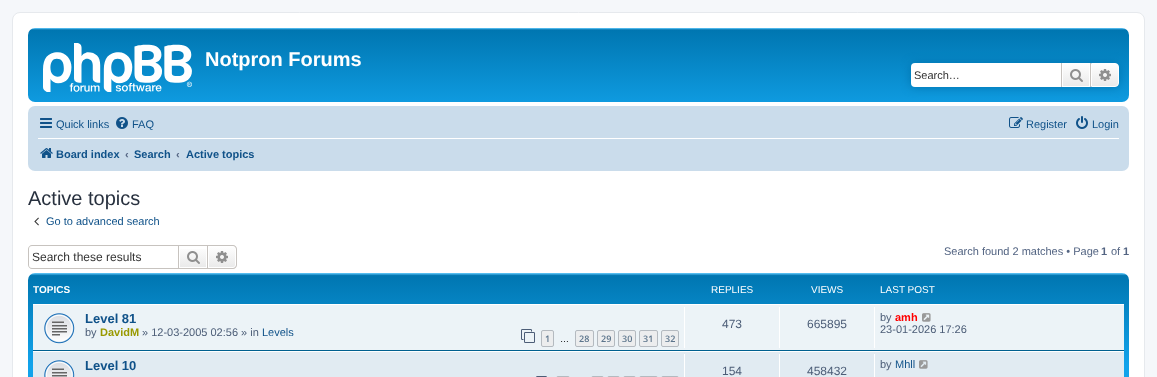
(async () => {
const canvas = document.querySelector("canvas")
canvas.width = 1157
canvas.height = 377
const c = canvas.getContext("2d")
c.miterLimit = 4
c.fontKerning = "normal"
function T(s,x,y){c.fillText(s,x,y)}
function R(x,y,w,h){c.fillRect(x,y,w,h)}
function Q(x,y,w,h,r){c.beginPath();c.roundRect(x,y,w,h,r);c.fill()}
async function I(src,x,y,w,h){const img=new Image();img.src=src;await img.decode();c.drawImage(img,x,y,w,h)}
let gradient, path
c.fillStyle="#f5f7fa"
R(0,0,1157,377)
c.fillStyle="#fff"
c.beginPath()
c.roundRect(12.5,12.5,1132,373,7.5)
c.fill()
c.strokeStyle="#e6e9ed"
c.stroke()
gradient = c.createLinearGradient(579,28,579,120)
gradient.addColorStop(0,"#6aceff")
gradient.addColorStop(.02,"#0076b1")
gradient.addColorStop(1,"#12a3eb")
c.fillStyle = gradient
Q(28,28,1101,74,7)
await I("1.png",43,43,149,49)
c.font="bold 20px Liberation Sans"
c.fillStyle="#fff"
T("Notpron Forums",205,66)
c.fillStyle="#0075b0"
c.filter="blur(5px)"
c.beginPath()
c.roundRect(911,63,208,24,4)
c.fill()
c.filter="none"
c.fillStyle="#fff"
c.beginPath()
c.roundRect(911,63,150,24,[4,0,0,4])
c.fill()
c.font="11px Liberation Sans"
c.fillStyle="#333"
T("Search…",914,79)
gradient = c.createLinearGradient(1076,63,1076,87)
gradient.addColorStop(0,"#fff")
gradient.addColorStop(1,"#e9e9e9")
c.fillStyle = gradient
R(1063,64,26,22)
c.strokeStyle="#fff"
c.strokeRect(1062.5,63.5,27,23)
c.fillStyle="#c7c3bf"
R(1090,63,1,24)
R(1061,63,1,24)
await I("2.png",1070,69,13,13)
gradient = c.createLinearGradient(1105,63,1105,87)
gradient.addColorStop(0,"#fff")
gradient.addColorStop(1,"#e9e9e9")
c.fillStyle = gradient
c.beginPath()
c.roundRect(1091.5,63.5,27,23,[0,3.5,3.5,0])
c.fill()
c.stroke()
await I("3.png",1099,69,12,12)
c.fillStyle="#cadceb"
Q(28,106,1101,65,7)
await I("4.png",40,118,12,10)
c.fillStyle="#105289"
T("Quick links",56,128)
await I("5.png",116,117,12,12)
T("FAQ",132,128)
await I("6.png",1009,117,14,11)
T("Register",1026,128)
await I("7.png",1076,116,12,13)
T("Login",1092,128)
c.fillStyle="#fff"
R(38,138,1081,1)
await I("8.png",40,148,13,10)
c.font="bold 11px Liberation Sans"
c.fillStyle="#105289"
T("Board index",56,158)
c.fillStyle="#536482"
T("‹",125,158)
c.fillStyle="#105289"
T("Search",134,158)
c.fillStyle="#536482"
T("‹",176,158)
c.fillStyle="#105289"
T("Active topics",186,158)
c.font="20px Liberation Sans"
c.fillStyle="#28313f"
T("Active topics",28,205)
await I("9.png",34,217,5,9)
c.font="11px Liberation Sans"
c.fillStyle="#105289"
T("Go to advanced search",46,225)
c.fillStyle="#c7c3bf"
path = new Path2D("M32 245h146v24h-146c-2 0-4-2-4-4v-16c0-2 2-4 4-4zm0 1h146v22h-146c-2 0-3-1-3-3v-16c0-2 1-3 3-3z")
c.fill(path,"evenodd")
c.font="12px Liberation Sans"
c.fillStyle="#333"
T("Search these results",32,261)
gradient = c.createLinearGradient(193,246,193,268)
gradient.addColorStop(0,"#fff")
gradient.addColorStop(1,"#e9e9e9")
c.fillStyle = gradient
R(180,249,26,18)
c.strokeStyle="#c7c3bf"
c.strokeRect(178.5,245.5,29,23)
await I("10.png",187,251,13,13)
gradient = c.createLinearGradient(222,246,222,268)
gradient.addColorStop(0,"#fff")
gradient.addColorStop(1,"#e9e9e9")
c.fillStyle = gradient
c.beginPath()
c.roundRect(208.5,246.5,27,21,[0,2.5,2.5,0])
c.fill()
c.strokeStyle="#fff"
c.stroke()
c.fillStyle="#c7c3bf"
path = new Path2D("M208 245h25c2 0 4 2 4 4v16c0 2-2 4-4 4h-25zm0 1h25c1.5 0 3 1.5 3 3v16c0 1.5-1.5 3-3 3h-25z")
c.fill(path,"evenodd")
await I("11.png",216,251,12,12)
c.font="11px Liberation Sans"
c.fillStyle="#536482"
T("Search found 2 matches • Page",944,255)
c.font="bold 11px Liberation Sans"
T("1",1101,255)
c.font="11px Liberation Sans"
T("of",1111,255)
c.font="bold 11px Liberation Sans"
T("1",1123,255)
gradient = c.createLinearGradient(579,273,579,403)
gradient.addColorStop(0,"#6aceff")
gradient.addColorStop(.02,"#0076b1")
gradient.addColorStop(.71,"#12a3eb")
gradient.addColorStop(1,"#12a3eb")
c.fillStyle = gradient
Q(28,273,1101,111,7)
c.font="bold 10px Liberation Sans"
c.fillStyle="#fff"
T("TOPICS",33,293)
c.font="10px Liberation Sans"
T("REPLIES",711,293)
T("VIEWS",811,293)
T("LAST POST",880,293)
c.fillStyle="#ecf3f7"
R(33,305,1091,45)
c.fillStyle="#fff"
R(33,304,1091,1)
c.fillStyle="#00608f"
R(33,350,1091,1)
await I("12.png",44,313,31,31)
c.font="bold 13px Liberation Sans"
c.fillStyle="#105289"
T("Level 81",85,323)
c.font="11px Liberation Sans"
c.fillStyle="#4c5d77"
T("by",85,336)
c.font="bold 11px Liberation Sans"
c.fillStyle="#990"
T("DavidM",100,336)
c.font="11px Liberation Sans"
c.fillStyle="#4c5d77"
T("» 12-03-2005 02:56 » in",142,336)
c.fillStyle="#105289"
T("Levels",262,336)
await I("13.png",521,329,14,14)
c.fillStyle="#ecedee"
c.beginPath()
c.roundRect(541.5,330.5,12,16,1.5)
c.fill()
c.strokeStyle="#b4bac0"
c.stroke()
c.font="600 9px Open Sans"
c.fillStyle="#5c758c"
T("1",545,342)
c.font="9px Liberation Sans"
c.fillStyle="#000"
T("…",560,342)
c.fillStyle="#ecedee"
c.beginPath()
c.roundRect(575.5,330.5,18,16,1.5)
c.fill()
c.stroke()
c.font="600 9px Open Sans"
c.fillStyle="#5c758c"
T("28",579,342)
c.fillStyle="#ecedee"
c.beginPath()
c.roundRect(597.5,330.5,17,16,1.5)
c.fill()
c.stroke()
c.fillStyle="#5c758c"
T("29",601,342)
c.fillStyle="#ecedee"
c.beginPath()
c.roundRect(618.5,330.5,17,16,1.5)
c.fill()
c.stroke()
c.fillStyle="#5c758c"
T("30",622,342)
c.fillStyle="#ecedee"
c.beginPath()
c.roundRect(639.5,330.5,18,16,1.5)
c.fill()
c.stroke()
c.fillStyle="#5c758c"
T("31",643,342)
c.fillStyle="#ecedee"
c.beginPath()
c.roundRect(661.5,330.5,17,16,1.5)
c.fill()
c.stroke()
c.fillStyle="#5c758c"
T("32",665,342)
c.fillStyle="#fff"
R(684,307,1,41)
c.font="12px Liberation Sans"
c.fillStyle="#4c5d77"
T("473",722,328)
c.fillStyle="#fff"
R(779,307,1,41)
c.fillStyle="#4c5d77"
T("665895",807,328)
c.fillStyle="#fff"
R(874,307,1,41)
c.font="11px Liberation Sans"
c.fillStyle="#4c5d77"
T("by",880,321)
c.font="bold 11px Liberation Sans"
c.fillStyle="#f00"
T("amh",895,321)
await I("14.png",922,313,9,9)
c.font="11px Liberation Sans"
c.fillStyle="#4c5d77"
T("23-01-2026 17:26",880,333)
c.fillStyle="#e1ebf2"
R(33,352,1091,25)
c.fillStyle="#fff"
R(33,351,1091,1)
await I("15.png",44,360,31,17)
c.font="bold 13px Liberation Sans"
c.fillStyle="#105289"
T("Level 10",85,370)
await I("16.png",536,376,11,1)
c.beginPath()
c.roundRect(556.5,376.5,13,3,1.5)
c.stroke()
c.beginPath()
c.roundRect(591.5,376.5,12,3,1.5)
c.stroke()
c.beginPath()
c.roundRect(607.5,376.5,12,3,1.5)
c.stroke()
c.beginPath()
c.roundRect(623.5,376.5,12,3,1.5)
c.stroke()
c.beginPath()
c.roundRect(639.5,376.5,18,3,1.5)
c.stroke()
c.beginPath()
c.roundRect(661.5,376.5,17,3,1.5)
c.stroke()
c.fillStyle="#fff"
R(684,354,1,23)
c.font="12px Liberation Sans"
c.fillStyle="#4c5d77"
T("154",722,375)
c.fillStyle="#fff"
R(779,354,1,23)
c.fillStyle="#4c5d77"
T("458432",807,375)
c.fillStyle="#fff"
R(874,354,1,23)
c.font="11px Liberation Sans"
c.fillStyle="#4c5d77"
T("by",880,368)
c.fillStyle="#105289"
T("Mhll",895,368)
await I("17.png",919,360,9,9)
})()
